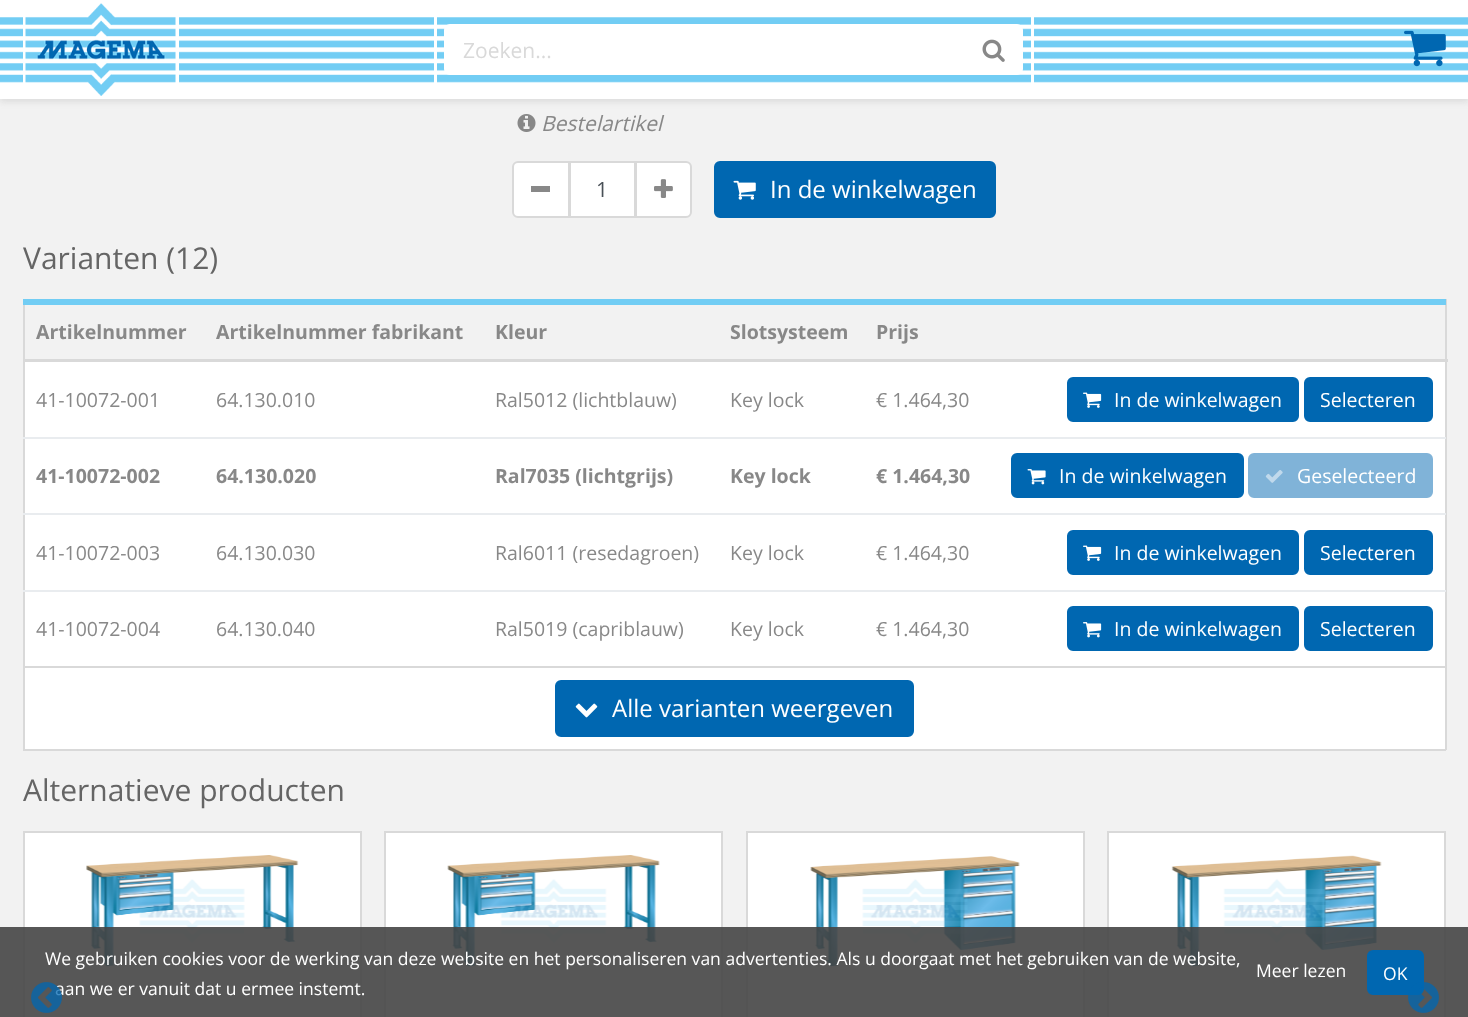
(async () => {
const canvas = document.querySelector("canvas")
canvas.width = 1468
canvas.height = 1017
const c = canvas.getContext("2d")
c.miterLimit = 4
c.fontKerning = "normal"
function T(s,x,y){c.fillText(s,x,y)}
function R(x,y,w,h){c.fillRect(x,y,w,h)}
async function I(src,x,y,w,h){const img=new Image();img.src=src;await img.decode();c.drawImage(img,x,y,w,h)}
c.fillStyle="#f2f2f2"
R(0,0,1468,1017)
c.fillStyle="#88888833"
c.filter="blur(3px)"
c.beginPath()
c.rect(0,3,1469,99)
c.fill()
c.filter="none"
c.fillStyle="#fff"
R(0,0,1468,99)
await I("1.png",0,17,1468,66)
R(23,17,156,66)
await I("2.png",25,3,151,93)
R(1031,9,3,81)
R(434,9,3,81)
c.beginPath()
c.roundRect(444,24,521,51,[6,0,0,6])
c.fill()
c.font="21px Open Sans"
c.fillStyle="#d9d9d9"
T("Zoeken...",463,58)
c.fillStyle="#fff"
c.beginPath()
c.roundRect(963,24,60,51,[0,6,6,0])
c.fill()
await I("3.png",982,39,23,23)
await I("4.png",1404,30,42,37)
await I("5.png",517,114,19,18)
c.font="italic 21px Open Sans"
c.fillStyle="#888"
T("Bestelartikel",541,131)
c.fillStyle="#fff"
c.beginPath()
c.rect(570,162,65,55)
c.fill()
c.strokeStyle="#d9d9d9"
c.lineWidth=2
c.stroke()
c.beginPath()
c.roundRect(513,162,56,55,[5,0,0,5])
c.fill()
c.stroke()
c.fillStyle="#888"
R(531,186,19,6)
c.font="21px Open Sans"
c.fillStyle="#495057"
T("1",596,197)
c.fillStyle="#fff"
c.beginPath()
c.roundRect(636,162,55,55,[0,5,5,0])
c.fill()
c.stroke()
await I("6.png",654,179,19,19)
c.fillStyle="#0067b1"
c.beginPath()
c.roundRect(715,162,280,55,5)
c.fill()
c.strokeStyle="#0067b1"
c.stroke()
await I("7.png",733,180,23,20)
c.font="24px Open Sans"
c.fillStyle="#fff"
T("In de winkelwagen",770,198)
c.font="30px Open Sans"
c.fillStyle="#656565"
T("Varianten (12)",23,269)
c.fillStyle="#d9d9d9"
R(1445,299,2,451)
R(23,666,1423,2)
R(23,299,2,369)
c.fillStyle="#72cdf4"
R(23,299,1423,6)
c.font="bold 19.5px Open Sans"
c.fillStyle="#888"
T("Artikelnummer",36,339)
T("Artikelnummer fabrikant",216,339)
T("Kleur",495,339)
T("Slotsysteem",730,339)
T("Prijs",876,339)
c.fillStyle="#d9d9d9"
R(23,359,1425,3)
c.fillStyle="#fff"
R(25,362,1420,75)
c.font="19.5px Open Sans"
c.fillStyle="#888"
T("41-10072-001",36,407)
T("64.130.010",216,407)
T("Ral5012 (lichtblauw)",495,407)
T("Key lock",730,407)
T("€ 1.464,30",876,407)
c.fillStyle="#0067b1"
c.beginPath()
c.roundRect(1068,378,230,43,5)
c.fill()
c.stroke()
await I("8.png",1083,392,19,16)
c.fillStyle="#fff"
T("In de winkelwagen",1114,407)
c.fillStyle="#0067b1"
c.beginPath()
c.roundRect(1305,378,127,43,5)
c.fill()
c.stroke()
c.fillStyle="#fff"
T("Selecteren",1320,407)
R(25,439,1420,74)
c.font="bold 19.5px Open Sans"
c.fillStyle="#888"
T("41-10072-002",36,483)
T("64.130.020",216,483)
T("Ral7035 (lichtgrijs)",495,483)
T("Key lock",730,483)
T("€ 1.464,30",876,483)
c.fillStyle="#e9ecef"
R(23,437,1423,2)
c.fillStyle="#0067b1"
c.beginPath()
c.roundRect(1012,454,231,43,5)
c.fill()
c.stroke()
await I("9.png",1027,469,19,16)
c.font="19.5px Open Sans"
c.fillStyle="#fff"
T("In de winkelwagen",1059,483)
c.fillStyle="#80b3d8"
c.beginPath()
c.roundRect(1249,454,183,43,5)
c.fill()
c.strokeStyle="#80b3d8"
c.stroke()
await I("10.png",1265,470,18,13)
c.fillStyle="#fff"
T("Geselecteerd",1297,483)
R(25,515,1420,75)
c.fillStyle="#888"
T("41-10072-003",36,560)
T("64.130.030",216,560)
T("Ral6011 (resedagroen)",495,560)
T("Key lock",730,560)
T("€ 1.464,30",876,560)
c.fillStyle="#e9ecef"
R(23,513,1423,2)
c.fillStyle="#0067b1"
c.beginPath()
c.roundRect(1068,531,230,43,5)
c.fill()
c.strokeStyle="#0067b1"
c.stroke()
await I("8.png",1083,545,19,16)
c.fillStyle="#fff"
T("In de winkelwagen",1114,560)
c.fillStyle="#0067b1"
c.beginPath()
c.roundRect(1305,531,127,43,5)
c.fill()
c.stroke()
c.fillStyle="#fff"
T("Selecteren",1320,560)
R(25,592,1420,74)
c.fillStyle="#888"
T("41-10072-004",36,636)
T("64.130.040",216,636)
T("Ral5019 (capriblauw)",495,636)
T("Key lock",730,636)
T("€ 1.464,30",876,636)
c.fillStyle="#e9ecef"
R(23,590,1423,2)
c.fillStyle="#0067b1"
c.beginPath()
c.roundRect(1068,607,230,43,5)
c.fill()
c.stroke()
await I("11.png",1083,622,19,16)
c.fillStyle="#fff"
T("In de winkelwagen",1114,636)
c.fillStyle="#0067b1"
c.beginPath()
c.roundRect(1305,607,127,43,5)
c.fill()
c.stroke()
c.fillStyle="#fff"
T("Selecteren",1320,636)
R(25,668,1420,81)
c.fillStyle="#d9d9d9"
R(23,749,1423,2)
R(23,668,2,82)
c.fillStyle="#0067b1"
c.beginPath()
c.roundRect(556,681,357,55,5)
c.fill()
c.stroke()
await I("12.png",575,703,23,15)
c.font="24px Open Sans"
c.fillStyle="#fff"
T("Alle varianten weergeven",612,717)
c.font="30px Open Sans"
c.fillStyle="#656565"
T("Alternatieve producten",23,801)
c.fillStyle="#fff"
c.beginPath()
c.rect(24,832,337,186)
c.fill()
c.strokeStyle="#d9d9d9"
c.stroke()
await I("13.png",86,855,213,112)
c.beginPath()
c.rect(385,832,337,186)
c.fill()
c.stroke()
await I("14.png",447,855,213,112)
c.beginPath()
c.rect(747,832,337,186)
c.fill()
c.stroke()
await I("15.png",810,856,210,111)
c.beginPath()
c.rect(1108,832,337,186)
c.fill()
c.stroke()
await I("16.png",1171,855,211,112)
c.fillStyle="#454545e6"
R(0,927,1468,90)
c.font="17.55px Open Sans"
c.fillStyle="#fff"
T("aan we er vanuit dat u ermee instemt.",55,995)
await I("17.png",31,982,31,31)
c.fillStyle="#0067b1"
c.beginPath()
c.roundRect(1368,951,55,43,5)
c.fill()
c.strokeStyle="#0067b1"
c.stroke()
await I("18.png",1408,982,31,31)
c.fillStyle="#fff"
T("We gebruiken cookies voor de werking van deze website en het personaliseren van advertenties. Als u doorgaat met het gebruiken van de website,",45,965)
T("Meer lezen",1256,977)
T("OK",1383,980)
})()
